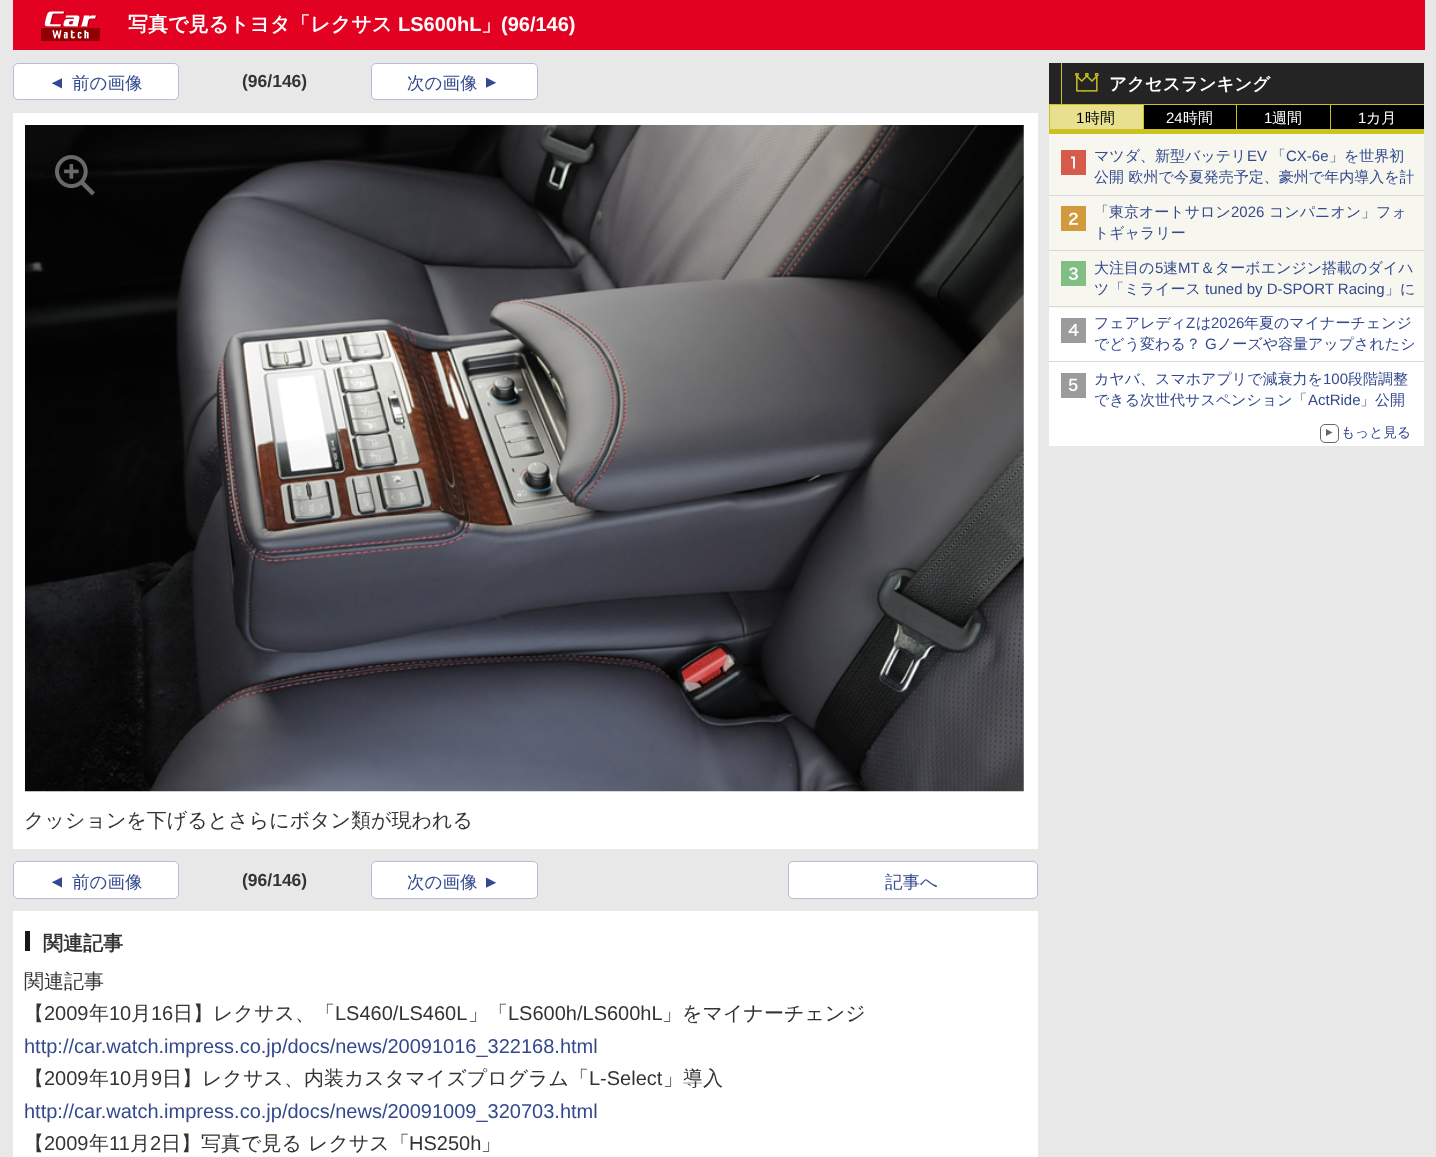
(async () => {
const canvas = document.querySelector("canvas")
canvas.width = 1436
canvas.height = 1157
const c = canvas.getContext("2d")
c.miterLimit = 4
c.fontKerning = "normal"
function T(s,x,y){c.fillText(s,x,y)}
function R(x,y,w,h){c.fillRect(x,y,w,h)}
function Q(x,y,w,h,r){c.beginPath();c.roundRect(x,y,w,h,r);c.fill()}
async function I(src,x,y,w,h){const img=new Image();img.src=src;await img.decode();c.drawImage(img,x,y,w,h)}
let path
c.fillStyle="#e8e8e8"
R(0,0,1436,1157)
c.fillStyle="#e30121"
R(13,0,1412,50)
await I("1.png",41,11,59,30)
c.font="bold 20px WenQuanYi Zen Hei"
c.fillStyle="#fff"
T("写真で見るトヨタ「レクサス",128,31)
c.font="bold 20px Liberation Sans"
T("LS600hL",398,31)
c.font="bold 20px WenQuanYi Zen Hei"
T("」",481,31)
c.font="bold 20px Liberation Sans"
T("(96/146)",501,31)
Q(13,63,166,37,5)
c.beginPath()
c.roundRect(13.5,63.5,165,36,4.5)
c.strokeStyle="#32498e5c"
c.stroke()
c.font="17.5px Liberation Sans"
c.fillStyle="#33498e"
c.save()
c.translate(62,92)
c.rotate(-90 * Math.PI / 180)
c.fillText("▲",0,0)
c.restore()
c.font="500 17.5px WenQuanYi Zen Hei"
T("前の画像",72,89)
c.font="bold 17.5px Liberation Sans"
c.fillStyle="#333"
T("(96/146)",242,87)
c.fillStyle="#fff"
Q(371,63,167,37,5)
c.beginPath()
c.roundRect(371.5,63.5,166,36,4.5)
c.stroke()
c.font="500 17.5px WenQuanYi Zen Hei"
c.fillStyle="#33498e"
T("次の画像",407,89)
c.font="17.5px Liberation Sans"
c.save()
c.translate(486,74)
c.rotate(90 * Math.PI / 180)
c.fillText("▲",0,0)
c.restore()
c.fillStyle="#fff"
R(13,113,1025,736)
await I("2.png",25,125,999,667)
c.fillStyle="#00000033"
R(44,171,69,5)
await I("3.png",55,155,40,41)
c.font="500 20px WenQuanYi Zen Hei"
c.fillStyle="#333"
T("クッションを下げるとさらにボタン類が現われる",24,827)
c.fillStyle="#fff"
Q(13,861,166,38,5)
c.beginPath()
c.roundRect(13.5,861.5,165,37,4.5)
c.stroke()
c.font="17.5px Liberation Sans"
c.fillStyle="#33498e"
c.save()
c.translate(62,891)
c.rotate(-90 * Math.PI / 180)
c.fillText("▲",0,0)
c.restore()
c.font="500 17.5px WenQuanYi Zen Hei"
T("前の画像",72,888)
c.font="bold 17.5px Liberation Sans"
c.fillStyle="#333"
T("(96/146)",242,886)
c.fillStyle="#fff"
Q(371,861,167,38,5)
c.beginPath()
c.roundRect(371.5,861.5,166,37,4.5)
c.stroke()
c.font="500 17.5px WenQuanYi Zen Hei"
c.fillStyle="#33498e"
T("次の画像",407,888)
c.font="17.5px Liberation Sans"
c.save()
c.translate(486,874)
c.rotate(90 * Math.PI / 180)
c.fillText("▲",0,0)
c.restore()
c.fillStyle="#fff"
Q(788,861,250,38,5)
c.beginPath()
c.roundRect(788.5,861.5,249,37,4.5)
c.stroke()
c.font="500 17.5px WenQuanYi Zen Hei"
c.fillStyle="#33498e"
T("記事へ",885,888)
c.fillStyle="#fff"
R(13,911,1025,246)
c.fillStyle="#181818"
R(25,931,5,20)
c.font="bold 20px WenQuanYi Zen Hei"
c.fillStyle="#333"
T("関連記事",43,950)
c.font="500 20px WenQuanYi Zen Hei"
T("関連記事",24,988)
T("【",24,1020)
c.font="20px Liberation Sans"
T("2009",44,1020)
c.font="500 20px WenQuanYi Zen Hei"
T("年",89,1020)
c.font="20px Liberation Sans"
T("10",109,1020)
c.font="500 20px WenQuanYi Zen Hei"
T("月",131,1020)
c.font="20px Liberation Sans"
T("16",151,1020)
c.font="500 20px WenQuanYi Zen Hei"
T("日】レクサス、「",173,1020)
c.font="20px Liberation Sans"
T("LS460/LS460L",335,1020)
c.font="500 20px WenQuanYi Zen Hei"
T("」「",468,1020)
c.font="20px Liberation Sans"
T("LS600h/LS600hL",508,1020)
c.font="500 20px WenQuanYi Zen Hei"
T("」をマイナーチェンジ",662,1020)
c.font="20px Liberation Sans"
c.fillStyle="#33498e"
T("http://car.watch.impress.co.jp/docs/news/20091016_322168.html",24,1053)
c.font="500 20px WenQuanYi Zen Hei"
c.fillStyle="#333"
T("【",24,1085)
c.font="20px Liberation Sans"
T("2009",44,1085)
c.font="500 20px WenQuanYi Zen Hei"
T("年",89,1085)
c.font="20px Liberation Sans"
T("10",109,1085)
c.font="500 20px WenQuanYi Zen Hei"
T("月",131,1085)
c.font="20px Liberation Sans"
T("9",151,1085)
c.font="500 20px WenQuanYi Zen Hei"
T("日】レクサス、内装カスタマイズプログラム「",162,1085)
c.font="20px Liberation Sans"
T("L-Select",589,1085)
c.font="500 20px WenQuanYi Zen Hei"
T("」導入",663,1085)
c.font="20px Liberation Sans"
c.fillStyle="#33498e"
T("http://car.watch.impress.co.jp/docs/news/20091009_320703.html",24,1118)
c.font="500 20px WenQuanYi Zen Hei"
c.fillStyle="#333"
T("【",24,1150)
c.font="20px Liberation Sans"
T("2009",44,1150)
c.font="500 20px WenQuanYi Zen Hei"
T("年",89,1150)
c.font="20px Liberation Sans"
T("11",109,1150)
c.font="500 20px WenQuanYi Zen Hei"
T("月",130,1150)
c.font="20px Liberation Sans"
T("2",150,1150)
c.font="500 20px WenQuanYi Zen Hei"
T("日】写真で見る レクサス「",161,1150)
c.font="20px Liberation Sans"
T("HS250h",409,1150)
c.font="500 20px WenQuanYi Zen Hei"
T("」",481,1150)
c.fillStyle="#242424"
R(1049,63,375,41)
c.fillStyle="#cbc121"
R(1049,104,375,1)
R(1061,63,1,42)
await I("4.png",1075,73,24,19)
c.font="bold 17.5px WenQuanYi Zen Hei"
c.fillStyle="#fff"
T("アクセスランキング",1109,90)
c.fillStyle="#e7e18f"
R(1050,105,93,24)
c.fillStyle="#cbc121"
R(1049,129,375,5)
R(1049,105,1,29)
c.font="15px Liberation Sans"
c.fillStyle="#000"
T("1",1076,123)
c.font="500 15px WenQuanYi Zen Hei"
T("時間",1085,123)
R(1144,105,92,24)
c.fillStyle="#cbc121"
R(1143,105,1,29)
c.font="15px Liberation Sans"
c.fillStyle="#fff"
T("24",1166,123)
c.font="500 15px WenQuanYi Zen Hei"
T("時間",1183,123)
c.fillStyle="#000"
R(1237,105,93,24)
c.fillStyle="#cbc121"
R(1236,105,1,29)
c.font="15px Liberation Sans"
c.fillStyle="#fff"
T("1",1264,123)
c.font="500 15px WenQuanYi Zen Hei"
T("週間",1272,123)
c.fillStyle="#000"
R(1331,105,93,24)
c.fillStyle="#cbc121"
R(1330,105,1,29)
c.font="15px Liberation Sans"
c.fillStyle="#fff"
T("1",1358,123)
c.font="500 15px WenQuanYi Zen Hei"
T("カ月",1366,123)
c.fillStyle="#f7f7ef"
R(1049,134,375,61)
c.fillStyle="#d8d8d8"
R(1049,195,375,1)
c.fillStyle="#d65b4a"
R(1061,150,25,25)
c.fillStyle="#f7f7ef"
path = new Path2D("M1075 168.5v-12h-4v2h2v10z")
c.fill(path)
c.fillStyle="#33498e"
T("マツダ、新型バッテリ",1094,161)
c.font="15px Liberation Sans"
T("EV",1247,161)
c.font="500 15px WenQuanYi Zen Hei"
T("「",1271,161)
c.font="15px Liberation Sans"
T("CX-6e",1286,161)
c.font="500 15px WenQuanYi Zen Hei"
T("」を世界初",1329,161)
T("公開 欧州で今夏発売予定、豪州で年内導入を計",1094,182)
c.fillStyle="#f7f7ef"
R(1049,196,375,54)
c.fillStyle="#d8d8d8"
R(1049,250,375,1)
await I("5.png",1061,206,25,25)
c.fillStyle="#33498e"
T("「東京オートサロン",1094,217)
c.font="15px Liberation Sans"
T("2026",1231,217)
c.font="500 15px WenQuanYi Zen Hei"
T("コンパニオン」フォ",1269,217)
T("トギャラリー",1094,238)
c.fillStyle="#f7f7ef"
R(1049,251,375,57)
c.fillStyle="#d8d8d8"
R(1049,306,375,1)
await I("6.png",1061,261,25,25)
c.fillStyle="#33498e"
T("大注目の",1094,273)
c.font="15px Liberation Sans"
T("5",1155,273)
c.font="500 15px WenQuanYi Zen Hei"
T("速",1163,273)
c.font="15px Liberation Sans"
T("MT",1178,273)
c.font="500 15px WenQuanYi Zen Hei"
T("＆ターボエンジン搭載のダイハ",1200,273)
T("ツ「ミライース",1094,294)
c.font="15px Liberation Sans"
T("tuned by D-SPORT Racing",1205,294)
c.font="500 15px WenQuanYi Zen Hei"
T("」に",1385,294)
c.fillStyle="#fff"
R(1049,308,375,138)
c.fillStyle="#d8d8d8"
R(1049,361,375,1)
await I("7.png",1061,318,25,25)
c.fillStyle="#33498e"
T("フェアレディ",1094,328)
c.font="15px Liberation Sans"
T("Z",1186,328)
c.font="500 15px WenQuanYi Zen Hei"
T("は",1196,328)
c.font="15px Liberation Sans"
T("2026",1211,328)
c.font="500 15px WenQuanYi Zen Hei"
T("年夏のマイナーチェンジ",1244,328)
T("でどう変わる？",1094,349)
c.font="15px Liberation Sans"
T("G",1205,349)
c.font="500 15px WenQuanYi Zen Hei"
T("ノーズや容量アップされたシ",1217,349)
await I("8.png",1061,373,25,25)
T("カヤバ、スマホアプリで減衰力を",1094,384)
c.font="15px Liberation Sans"
T("100",1323,384)
c.font="500 15px WenQuanYi Zen Hei"
T("段階調整",1348,384)
T("できる次世代サスペンション「",1094,405)
c.font="15px Liberation Sans"
T("ActRide",1308,405)
c.font="500 15px WenQuanYi Zen Hei"
T("」公開",1360,405)
c.beginPath()
c.roundRect(1320.5,424.5,18,18,4.5)
c.strokeStyle="#666"
c.stroke()
c.font="500 13.75px WenQuanYi Zen Hei"
T("もっと見る",1341,437)
c.fillStyle="#666"
path = new Path2D("M1326 436v-7l6.5 3.5z")
c.fill(path)
})()
